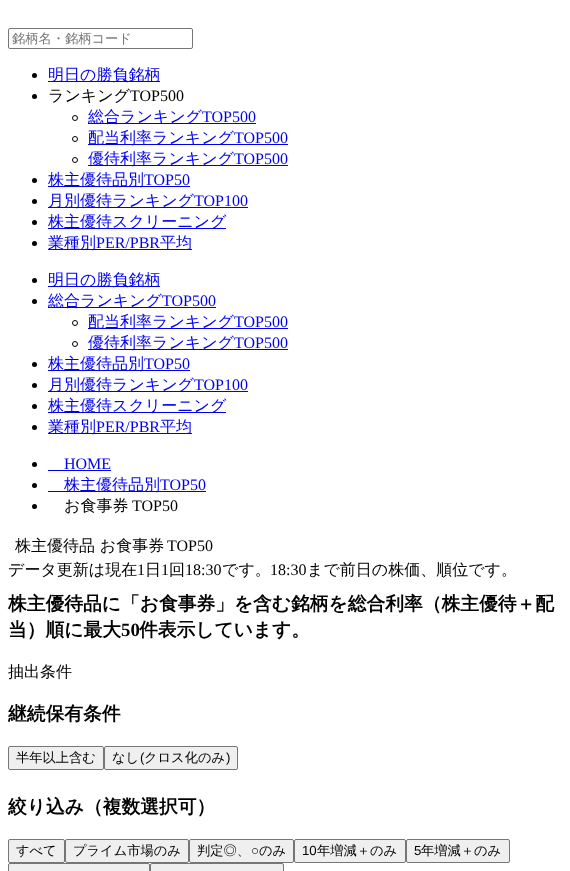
(async () => {
const canvas = document.querySelector("canvas")
canvas.width = 570
canvas.height = 871
const c = canvas.getContext("2d")
c.miterLimit = 4
c.fontKerning = "normal"
function T(s,x,y){c.fillText(s,x,y)}
function R(x,y,w,h){c.fillRect(x,y,w,h)}
c.fillStyle="#fff"
R(0,0,570,871)
c.beginPath()
c.roundRect(8.5,28.5,184,20,1.5)
c.strokeStyle="#767676"
c.stroke()
c.font="500 13.25px WenQuanYi Zen Hei"
c.fillStyle="#757575"
T("銘柄名・銘柄コード",12,43)
c.fillStyle="#000"
c.beginPath()
c.arc(34.5,75.5,2.5,0,7)
c.fill()
c.fillStyle="#00e"
R(48,81,112,1)
c.font="500 16px WenQuanYi Zen Hei"
T("明日の勝負銘柄",48,80)
c.fillStyle="#000"
c.beginPath()
c.arc(34.5,96.5,2.5,0,7)
c.fill()
T("ランキング",48,101)
c.font="16px Liberation Serif"
T("TOP500",130,101)
c.beginPath()
c.arc(75,118,2.5,0,7)
c.strokeStyle="#000"
c.stroke()
c.fillStyle="#00e"
R(88,123,168,1)
c.font="500 16px WenQuanYi Zen Hei"
T("総合ランキング",88,122)
c.font="16px Liberation Serif"
T("TOP500",202,122)
c.beginPath()
c.arc(75,139,2.5,0,7)
c.stroke()
R(88,144,200,1)
c.font="500 16px WenQuanYi Zen Hei"
T("配当利率ランキング",88,143)
c.font="16px Liberation Serif"
T("TOP500",234,143)
c.beginPath()
c.arc(75,160,2.5,0,7)
c.stroke()
R(88,165,200,1)
c.font="500 16px WenQuanYi Zen Hei"
T("優待利率ランキング",88,164)
c.font="16px Liberation Serif"
T("TOP500",234,164)
c.fillStyle="#000"
c.beginPath()
c.arc(34.5,180.5,2.5,0,7)
c.fill()
c.fillStyle="#00e"
R(48,186,142,1)
c.font="500 16px WenQuanYi Zen Hei"
T("株主優待品別",48,185)
c.font="16px Liberation Serif"
T("TOP50",144,185)
c.fillStyle="#000"
c.beginPath()
c.arc(34.5,201.5,2.5,0,7)
c.fill()
c.fillStyle="#00e"
R(48,207,200,1)
c.font="500 16px WenQuanYi Zen Hei"
T("月別優待ランキング",48,206)
c.font="16px Liberation Serif"
T("TOP100",194,206)
c.fillStyle="#000"
c.beginPath()
c.arc(34.5,222.5,2.5,0,7)
c.fill()
c.fillStyle="#00e"
R(48,228,178,1)
c.font="500 16px WenQuanYi Zen Hei"
T("株主優待スクリーニング",48,227)
c.fillStyle="#000"
c.beginPath()
c.arc(34.5,243.5,2.5,0,7)
c.fill()
c.fillStyle="#00e"
R(48,249,144,1)
T("業種別",48,248)
c.font="16px Liberation Serif"
T("PER/PBR",96,248)
c.font="500 16px WenQuanYi Zen Hei"
T("平均",160,248)
c.fillStyle="#000"
c.beginPath()
c.arc(34.5,280.5,2.5,0,7)
c.fill()
c.fillStyle="#00e"
R(48,286,112,1)
T("明日の勝負銘柄",48,285)
c.fillStyle="#000"
c.beginPath()
c.arc(34.5,301.5,2.5,0,7)
c.fill()
c.fillStyle="#00e"
R(48,307,168,1)
T("総合ランキング",48,306)
c.font="16px Liberation Serif"
T("TOP500",162,306)
c.beginPath()
c.arc(75,323,2.5,0,7)
c.stroke()
R(88,328,200,1)
c.font="500 16px WenQuanYi Zen Hei"
T("配当利率ランキング",88,327)
c.font="16px Liberation Serif"
T("TOP500",234,327)
c.beginPath()
c.arc(75,344,2.5,0,7)
c.stroke()
R(88,349,200,1)
c.font="500 16px WenQuanYi Zen Hei"
T("優待利率ランキング",88,348)
c.font="16px Liberation Serif"
T("TOP500",234,348)
c.fillStyle="#000"
c.beginPath()
c.arc(34.5,364.5,2.5,0,7)
c.fill()
c.fillStyle="#00e"
R(48,370,142,1)
c.font="500 16px WenQuanYi Zen Hei"
T("株主優待品別",48,369)
c.font="16px Liberation Serif"
T("TOP50",144,369)
c.fillStyle="#000"
c.beginPath()
c.arc(34.5,385.5,2.5,0,7)
c.fill()
c.fillStyle="#00e"
R(48,391,200,1)
c.font="500 16px WenQuanYi Zen Hei"
T("月別優待ランキング",48,390)
c.font="16px Liberation Serif"
T("TOP100",194,390)
c.fillStyle="#000"
c.beginPath()
c.arc(34.5,406.5,2.5,0,7)
c.fill()
c.fillStyle="#00e"
R(48,412,178,1)
c.font="500 16px WenQuanYi Zen Hei"
T("株主優待スクリーニング",48,411)
c.fillStyle="#000"
c.beginPath()
c.arc(34.5,427.5,2.5,0,7)
c.fill()
c.fillStyle="#00e"
R(48,433,144,1)
T("業種別",48,432)
c.font="16px Liberation Serif"
T("PER/PBR",96,432)
c.font="500 16px WenQuanYi Zen Hei"
T("平均",160,432)
c.fillStyle="#000"
c.beginPath()
c.arc(34.5,464.5,2.5,0,7)
c.fill()
c.font="16px Liberation Serif"
c.fillStyle="#00e"
T("HOME",64,469)
R(48,470,63,1)
c.fillStyle="#000"
c.beginPath()
c.arc(34.5,485.5,2.5,0,7)
c.fill()
c.fillStyle="#00e"
R(48,491,158,1)
c.font="500 16px WenQuanYi Zen Hei"
T("株主優待品別",64,490)
c.font="16px Liberation Serif"
T("TOP50",160,490)
c.fillStyle="#000"
c.beginPath()
c.arc(34.5,506.5,2.5,0,7)
c.fill()
c.font="500 16px WenQuanYi Zen Hei"
T("お食事券",64,511)
c.font="16px Liberation Serif"
T("TOP50",132,511)
c.font="500 16px WenQuanYi Zen Hei"
T("株主優待品 お食事券",15,551)
c.font="16px Liberation Serif"
T("TOP50",167,551)
c.font="500 16px WenQuanYi Zen Hei"
T("データ更新は現在",8,575)
c.font="16px Liberation Serif"
T("1",137,575)
c.font="500 16px WenQuanYi Zen Hei"
T("日",145,575)
c.font="16px Liberation Serif"
T("1",161,575)
c.font="500 16px WenQuanYi Zen Hei"
T("回",169,575)
c.font="16px Liberation Serif"
T("18:30",185,575)
c.font="500 16px WenQuanYi Zen Hei"
T("です。",222,575)
c.font="16px Liberation Serif"
T("18:30",270,575)
c.font="500 16px WenQuanYi Zen Hei"
T("まで前日の株価、順位です。",307,575)
c.font="bold 18.75px WenQuanYi Zen Hei"
T("株主優待品に「お食事券」を含む銘柄を総合利率（株主優待＋配",8,610)
T("当）順に最大",8,636)
c.font="bold 18.75px Liberation Serif"
T("50",121,636)
c.font="bold 18.75px WenQuanYi Zen Hei"
T("件表示しています。",139,636)
c.font="500 16px WenQuanYi Zen Hei"
T("抽出条件",8,677)
c.font="bold 18.75px WenQuanYi Zen Hei"
T("継続保有条件",8,720)
c.fillStyle="#efefef"
c.beginPath()
c.roundRect(8.5,746.5,95,23,1.5)
c.fill()
c.strokeStyle="#767676"
c.stroke()
c.font="500 13.25px WenQuanYi Zen Hei"
c.fillStyle="#000"
T("半年以上含む",16,762)
c.fillStyle="#efefef"
c.beginPath()
c.roundRect(104.5,746.5,133,23,1.5)
c.fill()
c.stroke()
c.fillStyle="#000"
T("なし",112,762)
c.font="13.25px Liberation Sans"
T("(",140,762)
c.font="500 13.25px WenQuanYi Zen Hei"
T("クロス化のみ",144,762)
c.font="13.25px Liberation Sans"
T(")",226,762)
c.font="bold 18.75px WenQuanYi Zen Hei"
T("絞り込み（複数選択可）",8,813)
c.fillStyle="#efefef"
c.beginPath()
c.roundRect(8.5,839.5,56,23,1.5)
c.fill()
c.stroke()
c.font="500 13.25px WenQuanYi Zen Hei"
c.fillStyle="#000"
T("すべて",16,855)
c.fillStyle="#efefef"
c.beginPath()
c.roundRect(65.5,839.5,123,23,1.5)
c.fill()
c.stroke()
c.fillStyle="#000"
T("プライム市場のみ",73,855)
c.fillStyle="#efefef"
c.beginPath()
c.roundRect(189.5,839.5,104,23,1.5)
c.fill()
c.stroke()
c.fillStyle="#000"
T("判定◎、",197,855)
c.font="13.25px Liberation Sans"
T("○",251,855)
c.font="500 13.25px WenQuanYi Zen Hei"
T("のみ",259,855)
c.fillStyle="#efefef"
c.beginPath()
c.roundRect(294.5,839.5,111,23,1.5)
c.fill()
c.stroke()
c.font="13.25px Liberation Sans"
c.fillStyle="#000"
T("10",302,855)
c.font="500 13.25px WenQuanYi Zen Hei"
T("年増減＋のみ",317,855)
c.fillStyle="#efefef"
c.beginPath()
c.roundRect(406.5,839.5,103,23,1.5)
c.fill()
c.stroke()
c.font="13.25px Liberation Sans"
c.fillStyle="#000"
T("5",414,855)
c.font="500 13.25px WenQuanYi Zen Hei"
T("年増減＋のみ",421,855)
c.fillStyle="#efefef"
c.beginPath()
c.roundRect(8.5,863.5,141,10,1.5)
c.fill()
c.stroke()
c.beginPath()
c.roundRect(150.5,863.5,133,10,1.5)
c.fill()
c.stroke()
})()
